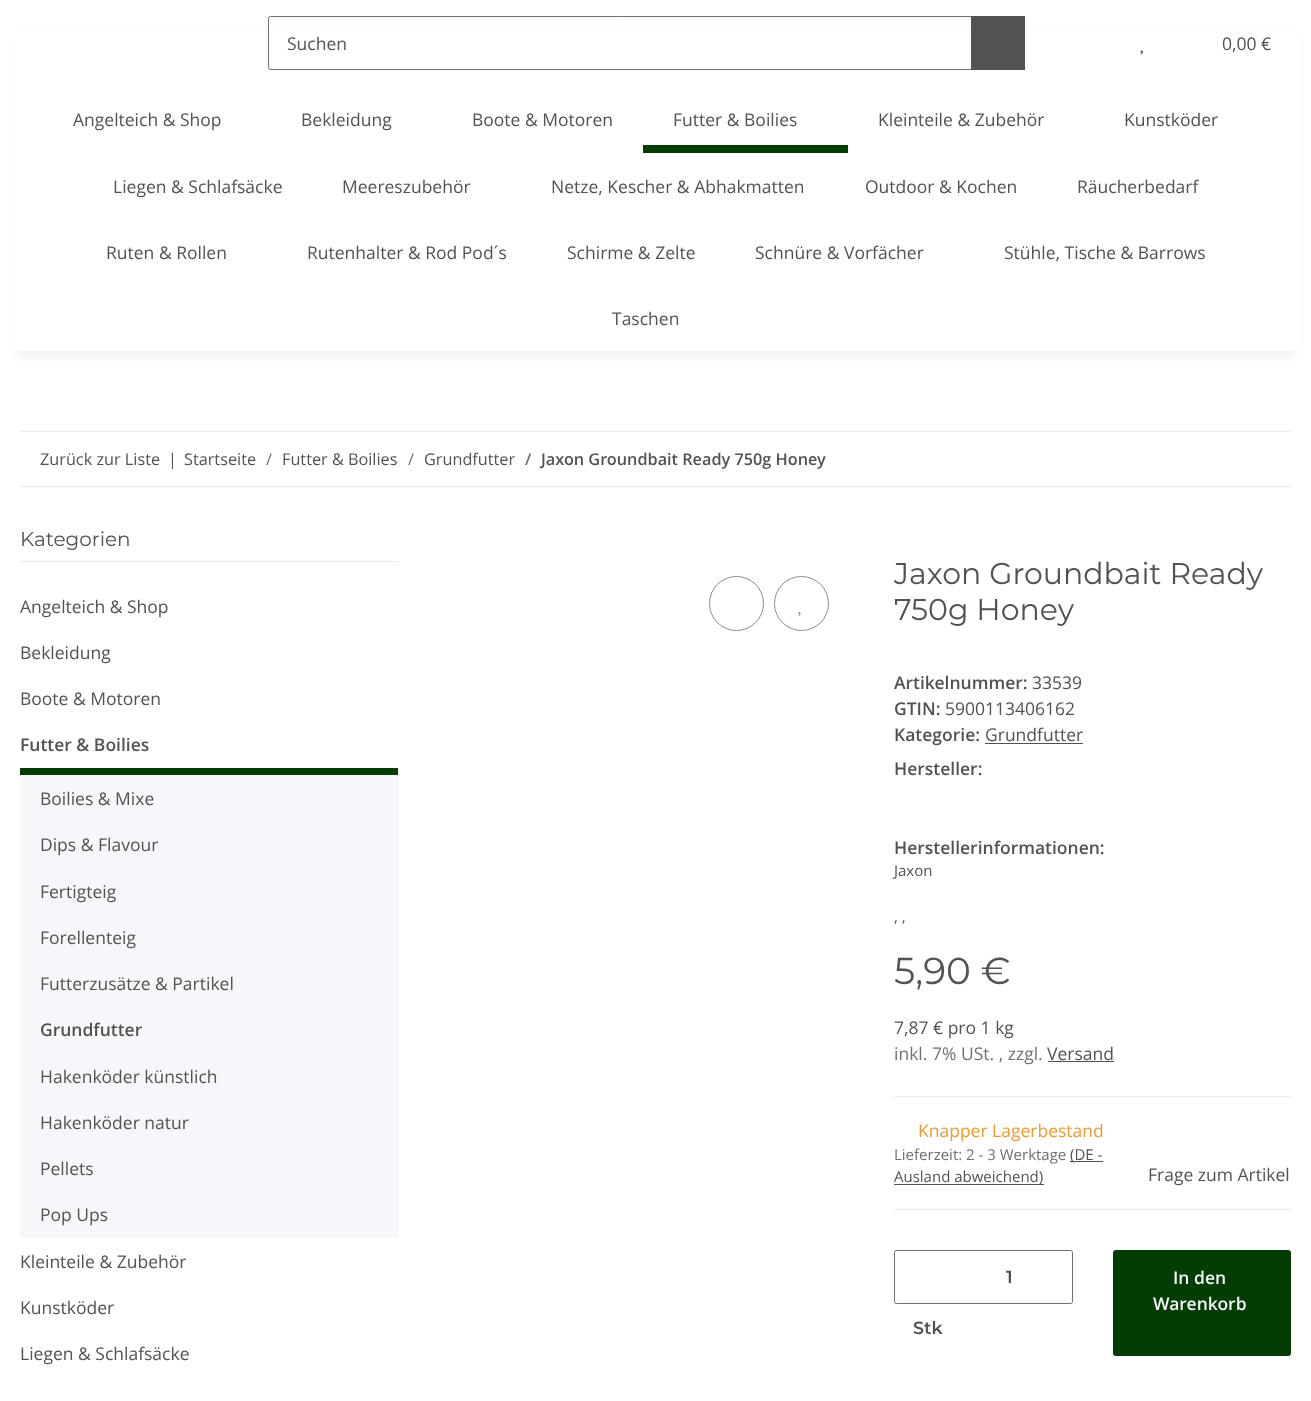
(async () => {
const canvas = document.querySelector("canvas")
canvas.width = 1311
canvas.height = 1401
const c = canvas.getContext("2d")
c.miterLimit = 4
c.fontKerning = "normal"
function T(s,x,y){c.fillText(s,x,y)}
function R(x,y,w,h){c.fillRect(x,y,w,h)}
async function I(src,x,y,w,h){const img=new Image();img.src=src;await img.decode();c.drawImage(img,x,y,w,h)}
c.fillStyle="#fff"
R(0,0,1311,1401)
c.fillStyle="#0000000f"
c.filter="blur(5.5px)"
c.beginPath()
c.rect(15,35,1281,321)
c.fill()
c.filter="none"
c.fillStyle="#fff"
R(10,30,1291,321)
c.beginPath()
c.roundRect(268.5,16.5,704,53,[2,0,0,2])
c.strokeStyle="#707070"
c.stroke()
c.font="17.5px Open Sans"
c.fillStyle="#525252"
T("Suchen",287,50)
R(971,16,54,54)
await I("1.png",1140,50,3,5)
T("0,00 €",1222,50)
T("Angelteich & Shop",73,126)
T("Bekleidung",301,126)
T("Boote & Motoren",472,126)
T("Futter & Boilies",673,126)
c.fillStyle="#043d03"
R(643,145,205,8)
c.fillStyle="#525252"
T("Kleinteile & Zubehör",878,126)
T("Kunstköder",1124,126)
T("Liegen & Schlafsäcke",113,193)
T("Meereszubehör",342,193)
T("Netze, Kescher & Abhakmatten",551,193)
T("Outdoor & Kochen",865,193)
T("Räucherbedarf",1077,193)
T("Ruten & Rollen",106,259)
T("Rutenhalter & Rod Pod´s",307,259)
T("Schirme & Zelte",567,259)
T("Schnüre & Vorfächer",755,259)
T("Stühle, Tische & Barrows",1004,259)
T("Taschen",612,325)
c.fillStyle="#ebebeb"
R(20,431,1271,1)
R(20,486,1271,1)
c.font="16.25px Open Sans"
c.fillStyle="#525252"
T("Zurück zur Liste",40,465)
T("|",168,465)
T("Startseite",184,465)
c.fillStyle="#707070"
T("/",266,465)
c.fillStyle="#525252"
T("Futter & Boilies",282,465)
c.fillStyle="#707070"
T("/",408,465)
c.fillStyle="#525252"
T("Grundfutter",424,465)
c.font="600 16.25px Open Sans"
c.fillStyle="#707070"
T("/",525,465)
c.fillStyle="#525252"
T("Jaxon Groundbait Ready 750g Honey",541,465)
c.fillStyle="#ebebeb"
R(20,561,378,1)
c.font="20px Montserrat"
c.fillStyle="#525252"
T("Kategorien",20,546)
c.font="17.5px Open Sans"
T("Angelteich & Shop",20,613)
T("Bekleidung",20,659)
T("Boote & Motoren",20,705)
c.fillStyle="#043d03"
R(20,768,378,7)
c.font="600 17.5px Open Sans"
c.fillStyle="#525252"
T("Futter & Boilies",20,751)
c.fillStyle="#f5f7fa"
R(20,775,378,463)
c.font="17.5px Open Sans"
c.fillStyle="#525252"
T("Boilies & Mixe",40,805)
T("Dips & Flavour",40,851)
T("Fertigteig",40,898)
T("Forellenteig",40,944)
T("Futterzusätze & Partikel",40,990)
c.font="600 17.5px Open Sans"
T("Grundfutter",40,1036)
c.font="17.5px Open Sans"
T("Hakenköder künstlich",40,1083)
T("Hakenköder natur",40,1129)
T("Pellets",40,1175)
T("Pop Ups",40,1221)
T("Kleinteile & Zubehör",20,1268)
T("Kunstköder",20,1314)
T("Liegen & Schlafsäcke",20,1360)
c.beginPath()
c.arc(736.5,603.5,27,0,7)
c.strokeStyle="#8d8d8d"
c.stroke()
c.beginPath()
c.arc(801.5,603.5,27,0,7)
c.stroke()
await I("2.png",798,612,3,4)
c.font="30px Montserrat"
T("Jaxon Groundbait Ready",894,584)
T("750g Honey",894,620)
c.font="600 17.5px Open Sans"
T("Artikelnummer:",894,689)
c.font="17.5px Open Sans"
T("33539",1032,689)
c.font="600 17.5px Open Sans"
T("GTIN:",894,715)
c.font="17.5px Open Sans"
T("5900113406162",945,715)
c.font="600 17.5px Open Sans"
T("Kategorie:",894,741)
c.font="17.5px Open Sans"
T("Grundfutter",985,741)
R(985,743,98,1)
c.font="600 17.5px Open Sans"
T("Hersteller:",894,775)
T("Herstellerinformationen:",894,854)
c.font="15px Open Sans"
T("Jaxon",894,876)
T(", ,",894,922)
c.font="37.5px Montserrat"
T("5,90 €",894,984)
c.font="17.5px Open Sans"
T("7,87 € pro 1 kg",894,1034)
c.fillStyle="#707070"
T("inkl. 7% USt. , zzgl.",894,1060)
c.fillStyle="#525252"
T("Versand",1047,1060)
R(1048,1061,66,1)
c.fillStyle="#ebebeb"
R(894,1096,397,1)
R(894,1209,397,1)
c.fillStyle="#f39932"
T("Knapper Lagerbestand",918,1137)
c.font="15px Open Sans"
c.fillStyle="#707070"
T("Lieferzeit: 2 - 3 Werktage",894,1160)
c.fillStyle="#525252"
R(1070,1161,33,1)
T("(DE -",1070,1160)
R(894,1184,150,1)
T("Ausland abweichend)",894,1182)
c.font="17.5px Open Sans"
T("Frage zum Artikel",1148,1181)
c.beginPath()
c.roundRect(894.5,1250.5,178,53,2)
c.strokeStyle="#707070"
c.stroke()
c.fillStyle="#fff"
R(1070,1251,1,52)
c.font="600 17.5px Montserrat"
c.fillStyle="#525252"
T("1",1006,1283)
T("Stk",913,1334)
c.fillStyle="#043d03"
c.beginPath()
c.roundRect(1113.5,1250.5,177,105,2)
c.fill()
c.strokeStyle="#043d03"
c.stroke()
c.font="600 17.5px Open Sans"
c.fillStyle="#f5f7fa"
T("In den",1173,1284)
T("Warenkorb",1153,1310)
})()
